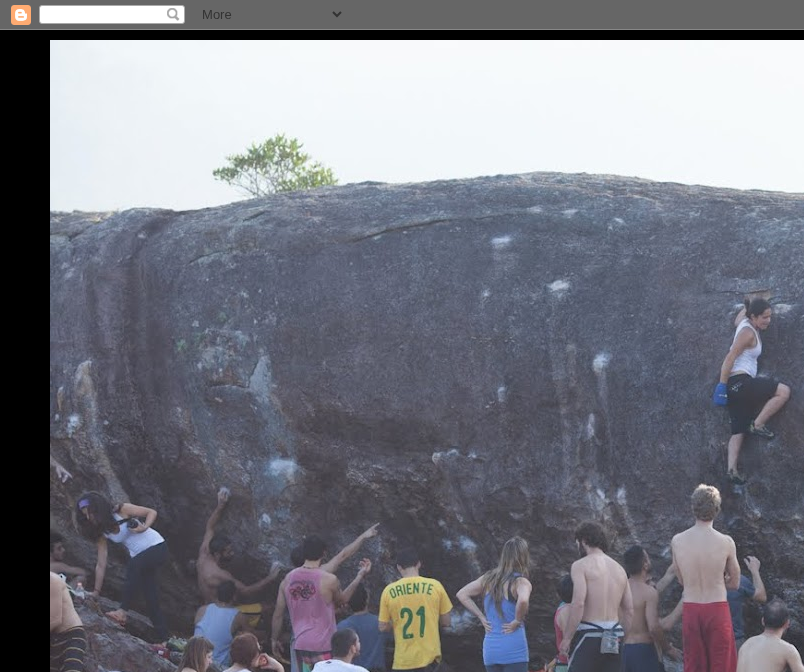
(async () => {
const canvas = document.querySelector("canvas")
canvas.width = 804
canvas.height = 672
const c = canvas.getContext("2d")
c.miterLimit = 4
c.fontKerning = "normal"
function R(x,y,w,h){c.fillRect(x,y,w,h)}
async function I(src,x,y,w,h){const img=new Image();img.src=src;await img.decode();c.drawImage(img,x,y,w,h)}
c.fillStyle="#000"
R(0,0,804,672)
await I("1.png",0,0,804,30)
await I("2.png",50,40,754,632)
})()
